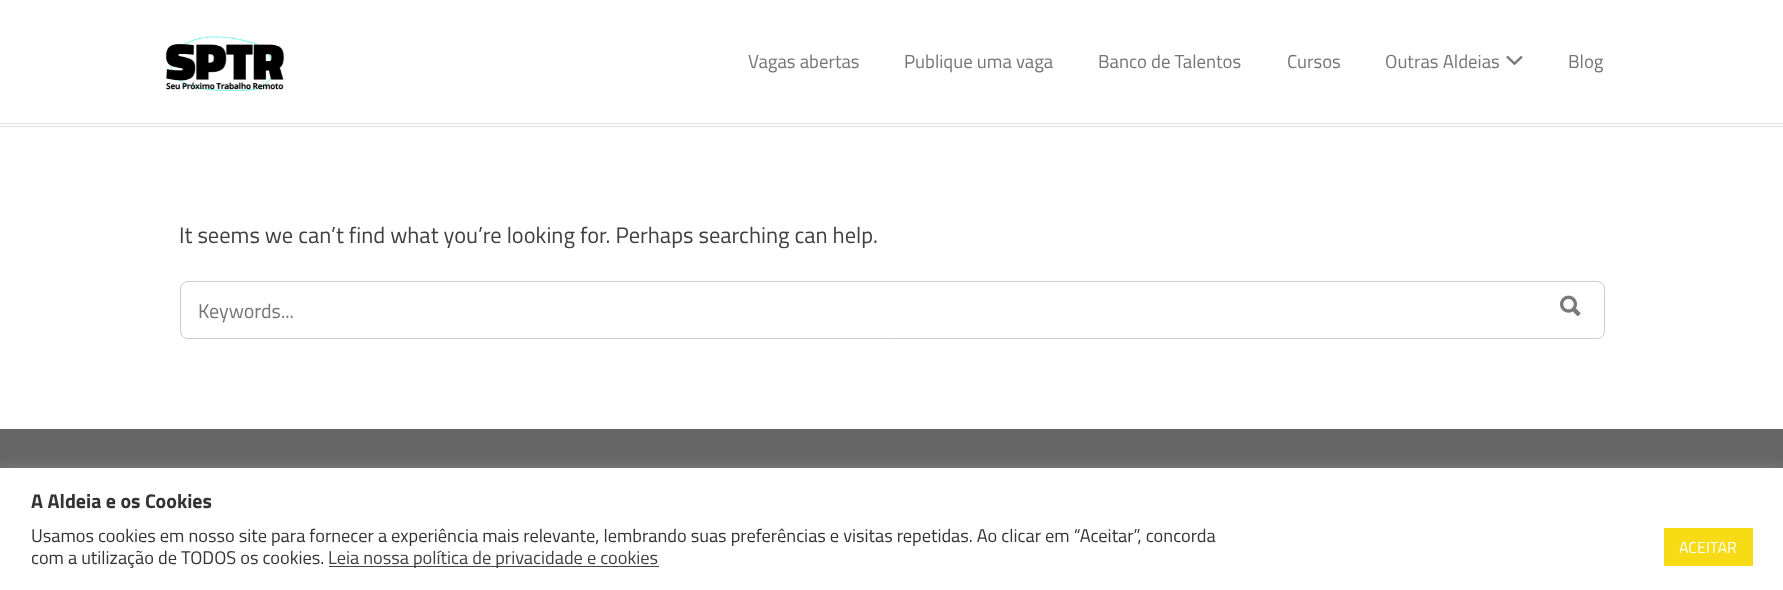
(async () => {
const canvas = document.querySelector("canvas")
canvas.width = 1783
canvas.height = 590
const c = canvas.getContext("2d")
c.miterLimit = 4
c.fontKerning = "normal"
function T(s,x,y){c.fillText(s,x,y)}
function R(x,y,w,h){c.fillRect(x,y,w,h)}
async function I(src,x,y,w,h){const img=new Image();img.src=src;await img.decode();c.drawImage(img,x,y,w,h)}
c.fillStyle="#fff"
R(0,0,1783,590)
c.fillStyle="#e6e6e6"
R(0,123,1783,1)
await I("1.png",165,36,120,55)
c.font="18.75px Titillium Web"
c.fillStyle="#757575"
T("Vagas abertas",748,68)
T("Publique uma vaga",904,68)
T("Banco de Talentos",1098,68)
T("Cursos",1287,68)
T("Outras Aldeias",1385,68)
await I("2.png",1506,55,17,11)
T("Blog",1568,68)
c.fillStyle="#fafafa"
R(0,124,1783,4)
c.fillStyle="#e7e7e7"
R(0,126,1783,1)
c.font="22.5px Titillium Web"
c.fillStyle="#404040"
T("It seems we can’t find what you’re looking for. Perhaps searching can help.",179,243)
c.beginPath()
c.roundRect(180.5,281.5,1424,57,7.5)
c.strokeStyle="#ccc"
c.stroke()
c.font="20px Titillium Web"
c.fillStyle="#757575"
T("Keywords...",198,318)
await I("3.png",1560,295,21,22)
c.fillStyle="#666"
R(0,429,1783,39)
c.fillStyle="#acabab4d"
c.filter="blur(6px)"
c.beginPath()
c.rect(0,466,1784,123)
c.fill()
c.filter="none"
c.fillStyle="#fff"
R(0,468,1783,122)
c.font="bold 20px Titillium Web"
c.fillStyle="#333"
T("A Aldeia e os Cookies",31,508)
c.font="18.33px Titillium Web"
T("Usamos cookies em nosso site para fornecer a experiência mais relevante, lembrando suas preferências e visitas repetidas. Ao clicar em “Aceitar”, concorda",31,542)
T("com a utilização de TODOS os cookies.",31,564)
c.fillStyle="#444"
R(329,566,330,1)
c.fillStyle="#404040"
T("Leia nossa política de privacidade e cookies",328,564)
c.fillStyle="#f7db15"
R(1664,528,89,38)
c.font="16px Titillium Web"
c.fillStyle="#fff"
T("ACEITAR",1679,553)
})()
